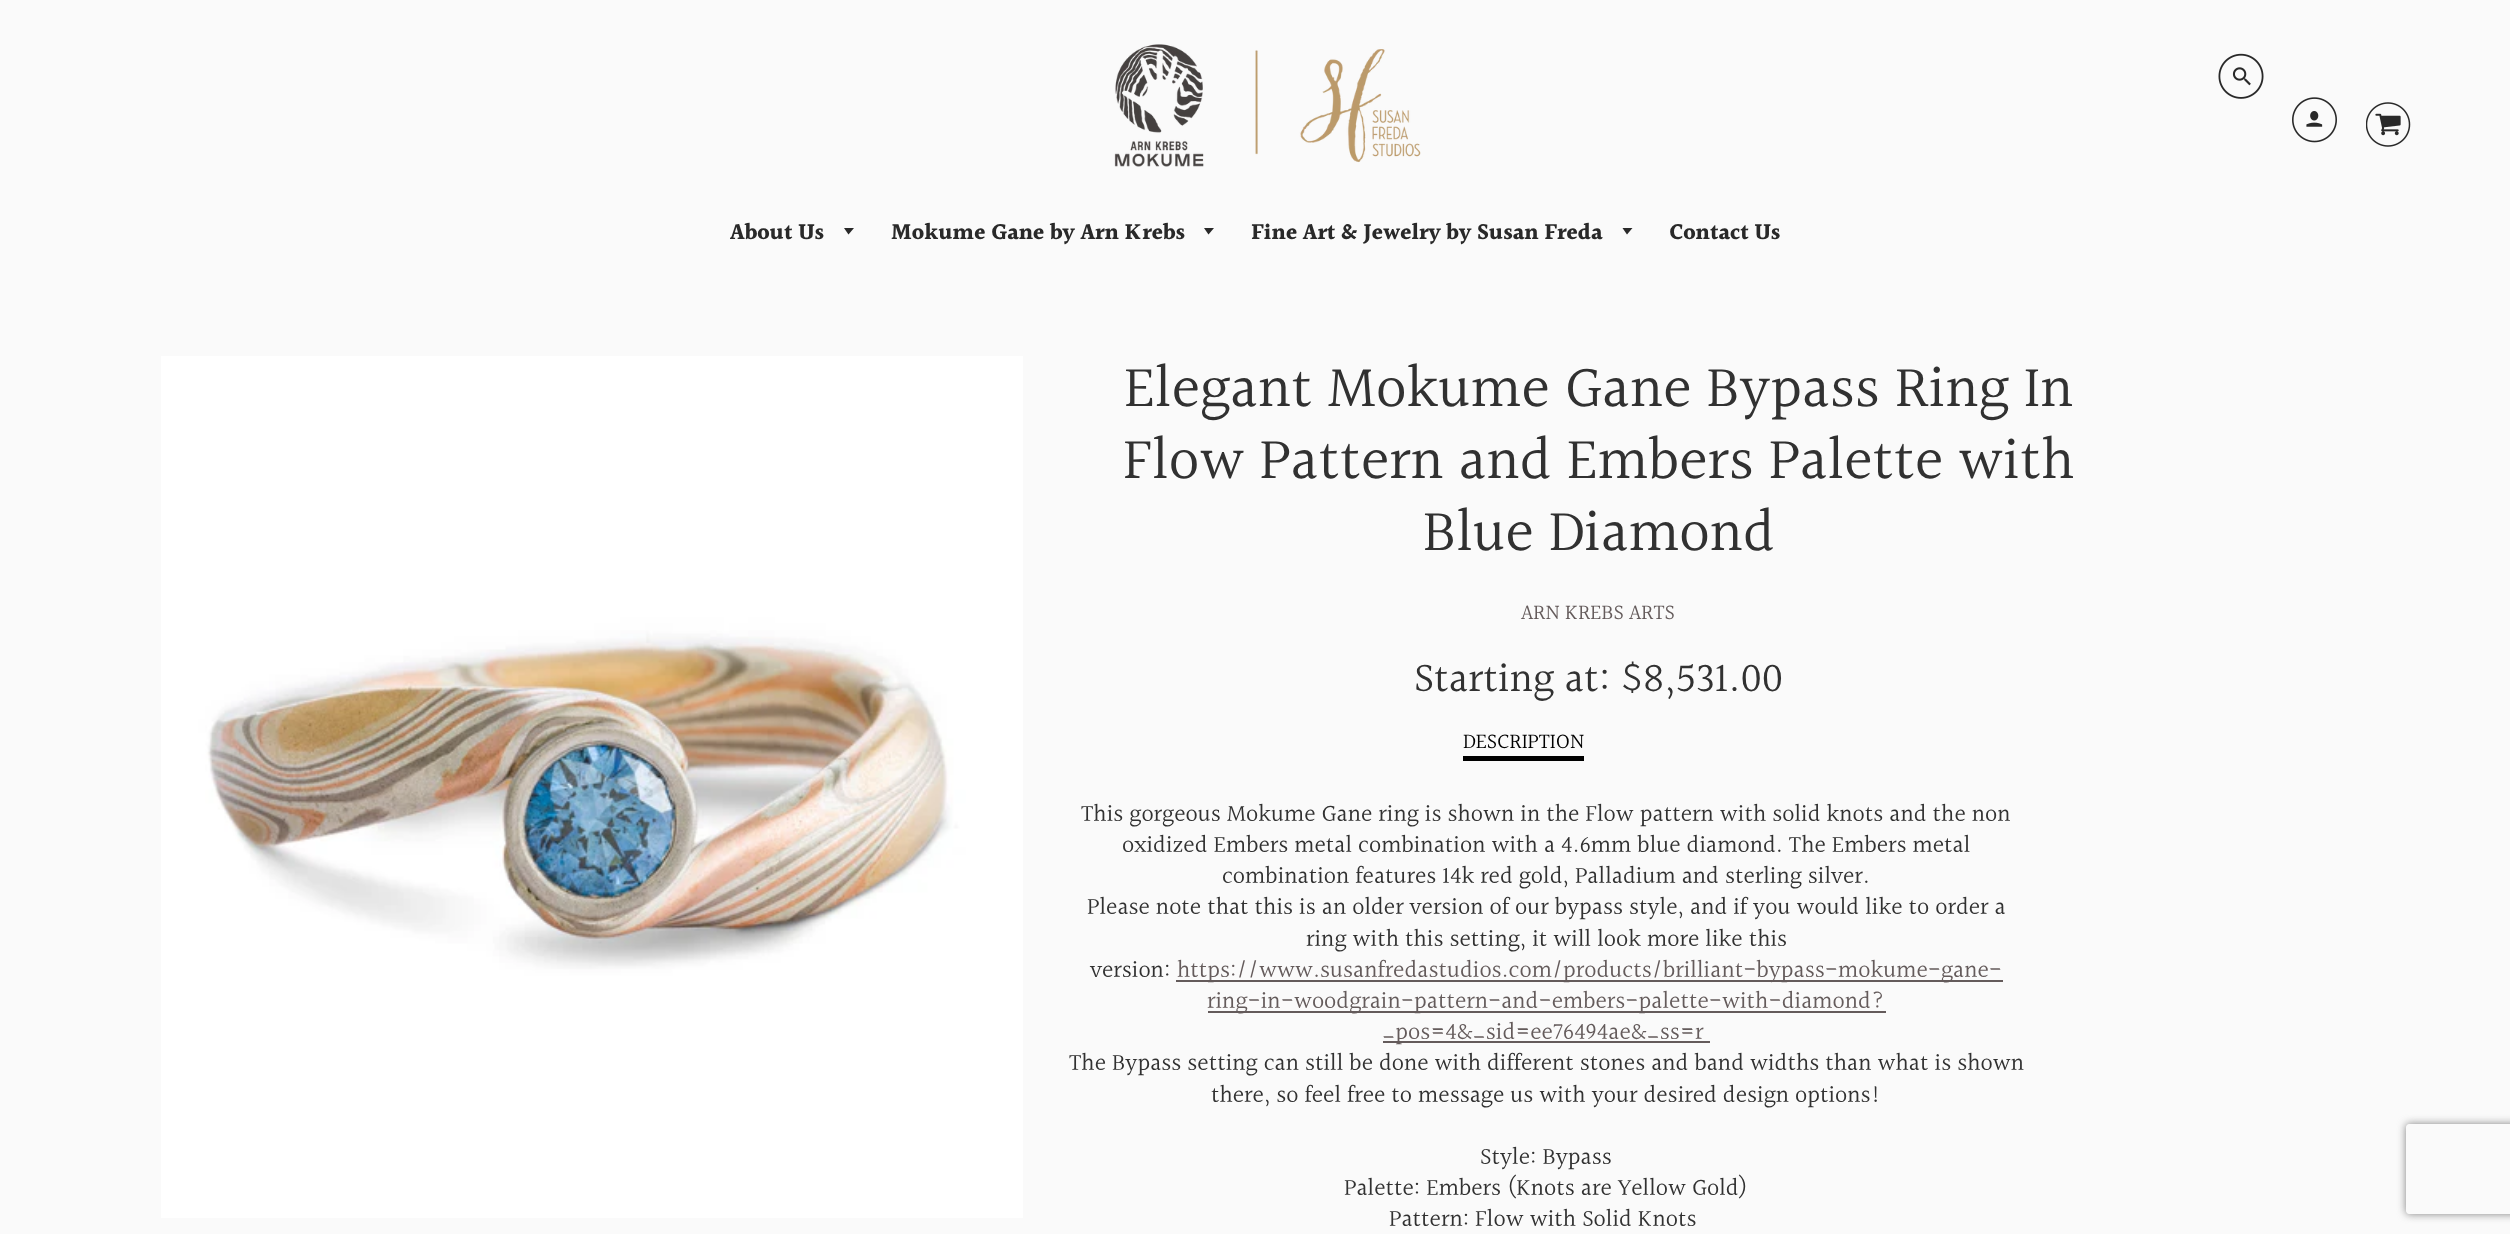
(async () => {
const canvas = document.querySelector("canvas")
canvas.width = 2510
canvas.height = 1234
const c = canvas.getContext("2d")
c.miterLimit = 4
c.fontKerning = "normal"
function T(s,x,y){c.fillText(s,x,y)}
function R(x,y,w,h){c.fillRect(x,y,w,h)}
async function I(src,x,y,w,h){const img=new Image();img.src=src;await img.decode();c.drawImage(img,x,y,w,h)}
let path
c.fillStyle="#fafafa"
R(0,0,2510,1234)
await I("1.png",1114,44,307,123)
await I("2.png",2218,53,46,46)
await I("3.png",2292,97,45,46)
await I("4.png",2366,102,45,45)
c.font="bold 22.5px Halant"
c.fillStyle="#292929"
T("About Us",730,240)
path = new Path2D("M844 228l4.5 6.5l5.5-6.5z")
c.fill(path)
T("Mokume Gane by Arn Krebs",891,240)
path = new Path2D("M1204 228l4.5 6.5l5.5-6.5z")
c.fill(path)
T("Fine Art & Jewelry by Susan Freda",1251,240)
path = new Path2D("M1622.5 228l4.5 6.5l5.5-6.5z")
c.fill(path)
T("Contact Us",1669,240)
await I("5.png",161,356,862,862)
c.font="60px Halant"
c.fillStyle="#313131"
T("Elegant Mokume Gane Bypass Ring In",1124,409)
T("Flow Pattern and Embers Palette with",1123,481)
T("Blue Diamond",1423,553)
c.font="21.5px Halant"
c.fillStyle="#645b5b"
T("ARN KREBS ARTS",1521,620)
c.font="42px Halant"
c.fillStyle="#313131"
T("Starting at: $8,531.00",1414,693)
c.fillStyle="#000"
R(1463,756,121,5)
c.font="21.5px Halant"
T("DESCRIPTION",1463,749)
c.font="24px Halant"
c.fillStyle="#313131"
T("This gorgeous Mokume Gane ring is shown in the Flow pattern with solid knots and the non",1081,822)
T("oxidized Embers metal combination with a 4.6mm blue diamond. The Embers metal",1122,853)
T("combination features 14k red gold, Palladium and sterling silver.",1222,884)
T("Please note that this is an older version of our bypass style, and if you would like to order a",1087,915)
T("ring with this setting, it will look more like this",1306,947)
T("version:",1090,978)
c.fillStyle="#645b5b"
R(1176,980,827,2)
T("https://www.susanfredastudios.com/products/brilliant-bypass-mokume-gane-",1177,978)
R(1208,1011,678,2)
T("ring-in-woodgrain-pattern-and-embers-palette-with-diamond?",1207,1009)
R(1383,1041,327,2)
T("_pos=4&_sid=ee76494ae&_ss=r",1382,1040)
c.fillStyle="#313131"
T("The Bypass setting can still be done with different stones and band widths than what is shown",1069,1071)
T("there, so feel free to message us with your desired design options!",1211,1103)
T("Style: Bypass",1480,1165)
T("Palette: Embers (Knots are Yellow Gold)",1344,1196)
T("Pattern: Flow with Solid Knots",1389,1227)
c.save()
path = new Path2D("M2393 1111h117v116h-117zm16 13h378c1.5 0 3 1.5 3 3v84c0 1.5-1.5 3-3 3h-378c-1.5 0-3-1.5-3-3v-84c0-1.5 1.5-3 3-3z")
c.clip(path,"evenodd")
c.fillStyle="#808080"
c.filter="blur(4px)"
c.beginPath()
c.roundRect(2406,1124,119,90,3)
c.fill()
c.filter="none"
c.restore()
})()
